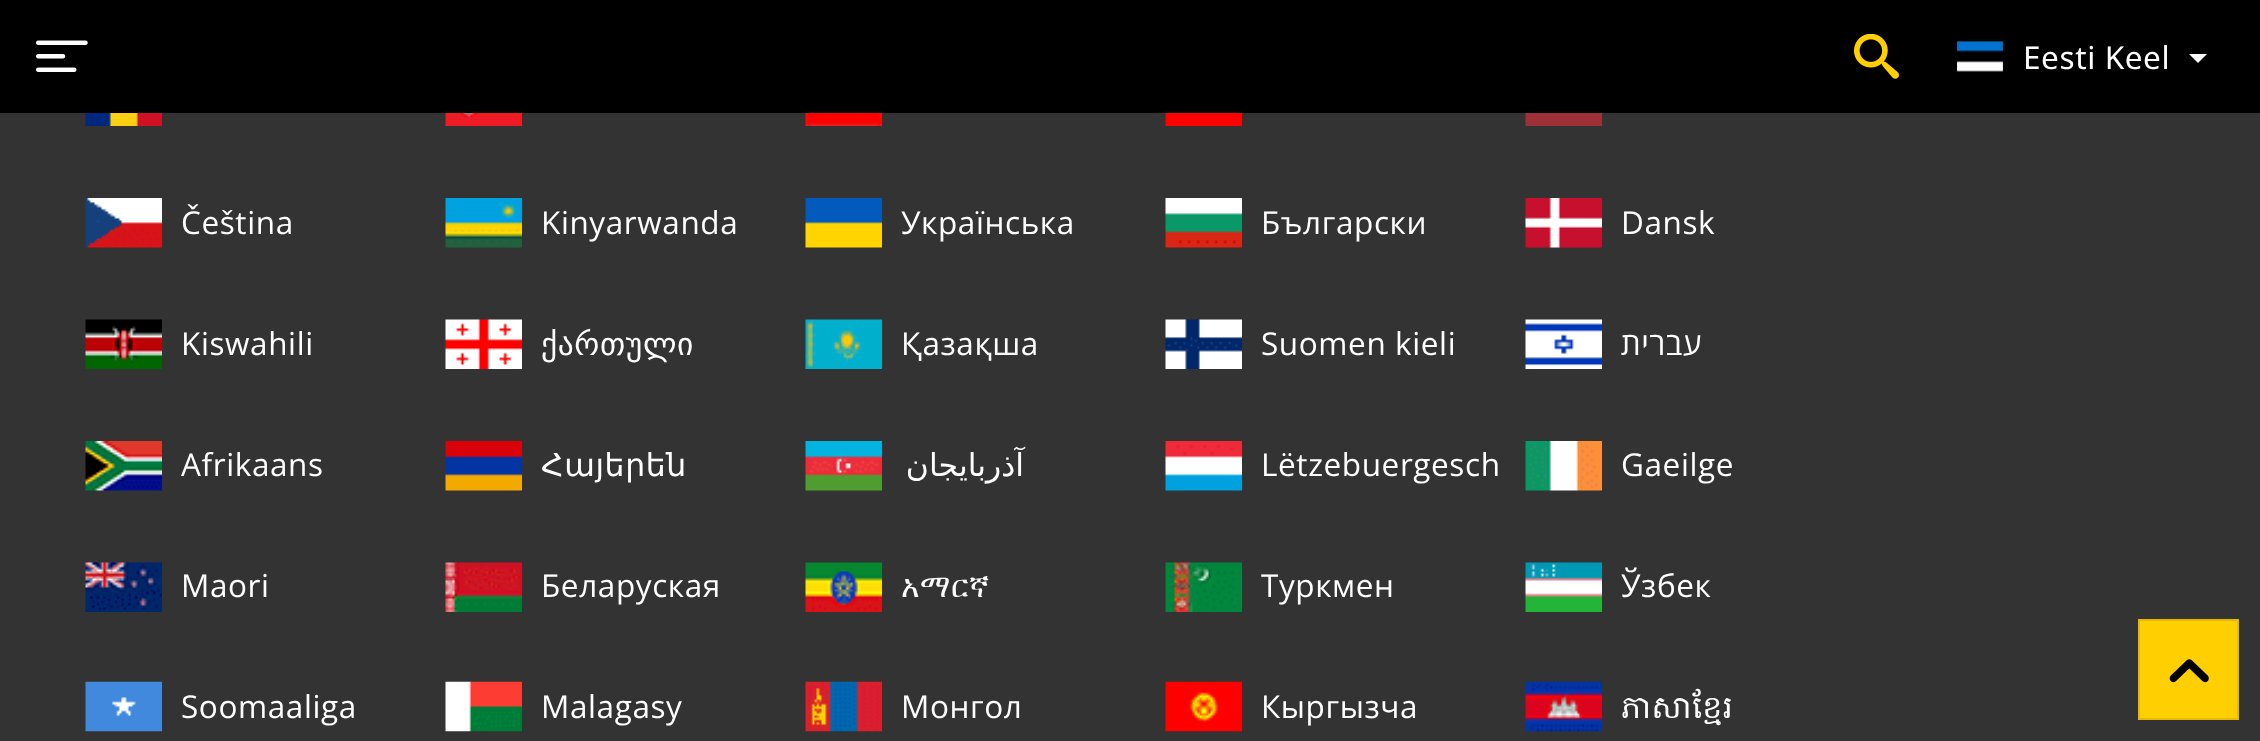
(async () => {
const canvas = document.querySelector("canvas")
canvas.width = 2260
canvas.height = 741
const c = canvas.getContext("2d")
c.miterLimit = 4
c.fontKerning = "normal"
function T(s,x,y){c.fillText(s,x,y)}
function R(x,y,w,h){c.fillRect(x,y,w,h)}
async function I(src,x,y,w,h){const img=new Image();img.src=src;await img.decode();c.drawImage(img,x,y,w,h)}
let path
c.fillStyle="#333"
R(0,0,2260,741)
c.fillStyle="#000"
R(0,0,2260,113)
await I("1.png",36,40,52,32)
await I("2.png",1854,34,45,45)
await I("3.png",1957,41,47,31)
c.letterSpacing="0.6px"
c.font="31.5px Noto Sans"
c.fillStyle="#fff"
T("Eesti Keel",2023,69)
path = new Path2D("M2189 54h18l-9 9z")
c.fill(path)
await I("4.png",85,113,77,13)
await I("5.png",445,113,77,13)
await I("6.png",805,113,77,13)
await I("7.png",1165,113,77,13)
await I("8.png",1525,113,77,13)
await I("9.png",85,198,77,50)
c.font="31.5px Open Sans"
T("Čeština",181,234)
await I("10.png",445,198,77,50)
T("Kinyarwanda",541,234)
await I("11.png",805,198,77,50)
T("Українська",901,234)
await I("12.png",1165,198,77,50)
T("Български",1261,234)
await I("13.png",1525,198,77,50)
T("Dansk",1621,234)
await I("14.png",85,319,77,50)
T("Kiswahili",181,355)
await I("15.png",445,319,77,50)
c.font="31.5px DejaVu Sans"
T("ქართული",541,355)
await I("16.png",805,319,77,50)
c.font="31.5px Open Sans"
T("Қазақша",901,355)
await I("17.png",1165,319,77,50)
T("Suomen kieli",1261,355)
await I("18.png",1525,319,77,50)
c.direction="rtl"
T("עברית",1702,355)
await I("19.png",85,441,77,50)
c.direction="ltr"
T("Afrikaans",181,476)
await I("20.png",445,441,77,50)
c.font="31.5px DejaVu Sans"
T("Հայերեն",541,476)
await I("21.png",805,441,77,50)
c.direction="rtl"
T("آذربايجان",1024,476)
await I("22.png",1165,441,77,50)
c.direction="ltr"
c.font="31.5px Open Sans"
T("Lëtzebuergesch",1261,476)
await I("23.png",1525,441,77,50)
T("Gaeilge",1621,476)
await I("24.png",85,562,77,50)
T("Maori",181,597)
await I("25.png",445,562,77,50)
T("Беларуская",541,597)
await I("26.png",805,562,77,50)
c.font="31.5px FreeSerif"
T("አማርኛ",901,597)
await I("27.png",1165,562,77,50)
c.font="31.5px Open Sans"
T("Туркмен",1261,597)
await I("28.png",1525,562,77,50)
T("Ўзбек",1621,597)
await I("29.png",85,681,77,51)
T("Soomaaliga",181,718)
await I("30.png",445,681,77,51)
T("Malagasy",541,718)
await I("31.png",805,681,77,51)
T("Монгол",901,718)
await I("32.png",1165,681,77,51)
T("Кыргызча",1261,718)
await I("33.png",1525,681,77,51)
c.font="31.5px Hanuman"
T("ភាសាខ្មែរ",1621,718)
c.fillStyle="#ffcf01"
c.beginPath()
c.rect(2139,620,99,99)
c.fill()
c.strokeStyle="#e6ba01"
c.lineWidth=2
c.stroke()
await I("34.png",2169,659,40,24)
})()
